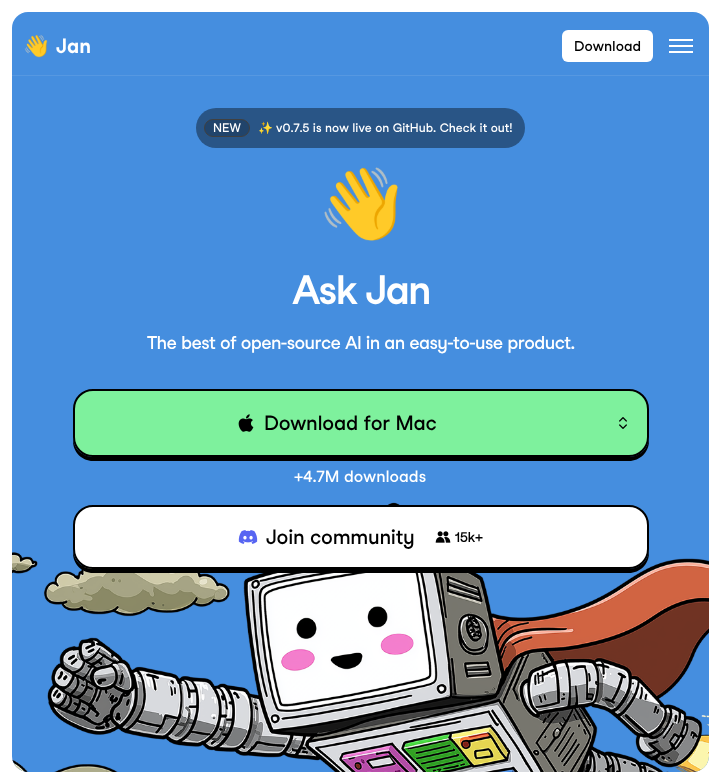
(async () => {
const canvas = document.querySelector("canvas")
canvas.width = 721
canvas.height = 783
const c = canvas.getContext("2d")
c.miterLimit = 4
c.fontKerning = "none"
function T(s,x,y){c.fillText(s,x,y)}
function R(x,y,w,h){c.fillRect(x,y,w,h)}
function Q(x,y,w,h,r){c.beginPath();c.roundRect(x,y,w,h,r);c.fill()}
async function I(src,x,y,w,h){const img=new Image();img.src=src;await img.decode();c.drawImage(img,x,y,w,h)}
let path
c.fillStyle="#fff"
R(0,0,721,783)
c.fillStyle="#458edf"
Q(12,12,697,760,16)
await I("1.png",24,34,24,24)
c.font="bold 20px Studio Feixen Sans"
c.fillStyle="#fff"
T("Jan",56,53)
Q(562,30,91,32,6)
c.font="500 14px Studio Feixen Sans"
c.fillStyle="#000"
T("Download",574,51)
c.fillStyle="#fff"
R(669,39,24,2)
R(669,45,24,2)
R(669,51,24,2)
c.fillStyle="#5698e1"
R(12,75,697,1)
c.fillStyle="#295586"
Q(196,108,329,40,20)
c.fillStyle="#21446b"
c.beginPath()
c.roundRect(204.5,119.5,45,17,8.5)
c.fill()
c.strokeStyle="#404040"
c.stroke()
c.font="500 12px Studio Feixen Sans"
c.fillStyle="#fff"
T("NEW",213,132)
c.save()
c.beginPath()
c.rect(258,120,255,16)
c.clip()
c.font="12px Noto Color Emoji"
T("✨",258,132)
c.restore()
T("v0.7.5 is now live on GitHub. Check it out!",276,132)
await I("2.png",324,167,74,74)
c.letterSpacing="-2px"
c.font="600 40px Studio Feixen Sans"
T("Ask Jan",292,304)
c.letterSpacing="-0.6px"
c.font="500 18px Studio Feixen Sans"
T("The best of open-source AI in an easy-to-use product.",147,349)
c.fillStyle="#000"
path = new Path2D("M73 437v4c0 11 9 20 20 20h536c11 0 20-9 20-20v-4c0 11-9 20-20 20h-536c-11 0-20-9-20-20z")
c.fill(path)
c.fillStyle="#7ef19d"
c.beginPath()
c.roundRect(74,390,574,66,19)
c.fill()
c.strokeStyle="#000"
c.lineWidth=2
c.stroke()
await I("3.png",238,414,16,18)
c.letterSpacing="-0.25px"
c.font="500 20px Studio Feixen Sans"
c.fillStyle="#000"
T("Download for Mac",264,430)
await I("4.png",619,417,8,12)
c.letterSpacing="0px"
c.font="500 16px Studio Feixen Sans"
c.fillStyle="#fff"
T("+4.7M downloads",294,482)
await I("7.png",12,502,697,270)
c.fillStyle="#000"
path = new Path2D("M73 549v4c0 11 9 20 20 20h536c11 0 20-9 20-20v-4c0 11-9 20-20 20h-536c-11 0-20-9-20-20z")
c.fill(path)
c.fillStyle="#fff"
c.beginPath()
c.roundRect(74,506,574,62,19)
c.fill()
c.stroke()
await I("5.png",238,530,20,14)
c.letterSpacing="-0.25px"
c.font="500 20px Studio Feixen Sans"
c.fillStyle="#000"
T("Join community",266,544)
await I("6.png",435,531,16,12)
c.font="500 14px Studio Feixen Sans"
T("15k+",455,542)
})()
